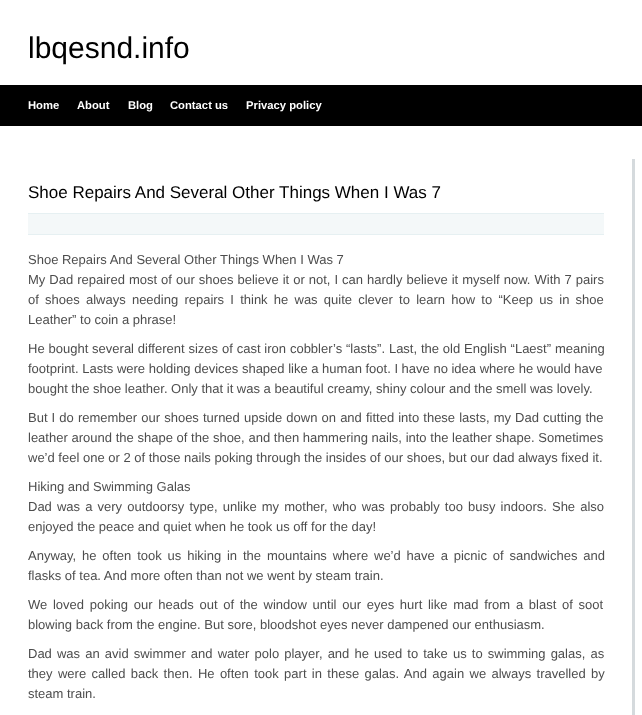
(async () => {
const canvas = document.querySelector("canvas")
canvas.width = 642
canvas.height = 715
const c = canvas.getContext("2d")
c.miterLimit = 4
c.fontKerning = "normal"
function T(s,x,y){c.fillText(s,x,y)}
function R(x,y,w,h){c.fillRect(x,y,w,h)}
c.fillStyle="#fff"
R(0,0,642,715)
c.font="30px Liberation Sans"
c.fillStyle="#000"
T("lbqesnd.info",28,58)
R(0,85,642,41)
c.font="bold 11.25px Liberation Sans"
c.fillStyle="#fff"
T("Home",28,109)
T("About",77,109)
T("Blog",128,109)
T("Contact us",170,109)
T("Privacy policy",246,109)
c.font="17px Liberation Sans"
c.fillStyle="#000"
T("Shoe Repairs And Several Other Things When I Was 7",28,198)
c.fillStyle="#f4f8f9"
R(28,214,576,20)
c.fillStyle="#e6f0f2"
R(28,213,576,1)
R(28,234,576,1)
c.font="13px Liberation Sans"
c.fillStyle="#4d4d4d"
T("Shoe Repairs And Several Other Things When I Was 7",28,264)
c.wordSpacing="0.4px"
T("My Dad repaired most of our shoes believe it or not, I can hardly believe it myself now. With 7 pairs",28,284)
c.wordSpacing="2.6px"
T("of shoes always needing repairs I think he was quite clever to learn how to “Keep us in shoe",28,304)
c.wordSpacing="0px"
T("Leather” to coin a phrase!",28,324)
c.wordSpacing="0.25px"
T("He bought several different sizes of cast iron cobbler’s “lasts”. Last, the old English “Laest” meaning",28,353)
c.wordSpacing="0px"
T("footprint. Lasts were holding devices shaped like a human foot. I have no idea where he would have",28,373)
T("bought the shoe leather. Only that it was a beautiful creamy, shiny colour and the smell was lovely.",28,393)
c.wordSpacing="0.5px"
T("But I do remember our shoes turned upside down on and fitted into these lasts, my Dad cutting the",28,422)
c.wordSpacing="0.1px"
T("leather around the shape of the shoe, and then hammering nails, into the leather shape. Sometimes",28,442)
c.wordSpacing="0px"
T("we’d feel one or 2 of those nails poking through the insides of our shoes, but our dad always fixed it.",28,462)
T("Hiking and Swimming Galas",28,491)
c.wordSpacing="1.5px"
T("Dad was a very outdoorsy type, unlike my mother, who was probably too busy indoors. She also",28,511)
c.wordSpacing="0px"
T("enjoyed the peace and quiet when he took us off for the day!",28,531)
c.wordSpacing="2.25px"
T("Anyway, he often took us hiking in the mountains where we’d have a picnic of sandwiches and",28,560)
c.wordSpacing="0px"
T("flasks of tea. And more often than not we went by steam train.",28,580)
c.wordSpacing="2.1px"
T("We loved poking our heads out of the window until our eyes hurt like mad from a blast of soot",28,609)
c.wordSpacing="0px"
T("blowing back from the engine. But sore, bloodshot eyes never dampened our enthusiasm.",28,629)
c.wordSpacing="1.5px"
T("Dad was an avid swimmer and water polo player, and he used to take us to swimming galas, as",28,658)
c.wordSpacing="1.75px"
T("they were called back then. He often took part in these galas. And again we always travelled by",28,678)
c.wordSpacing="0px"
T("steam train.",28,698)
c.fillStyle="#d5dadd"
R(632,159,3,556)
})()
